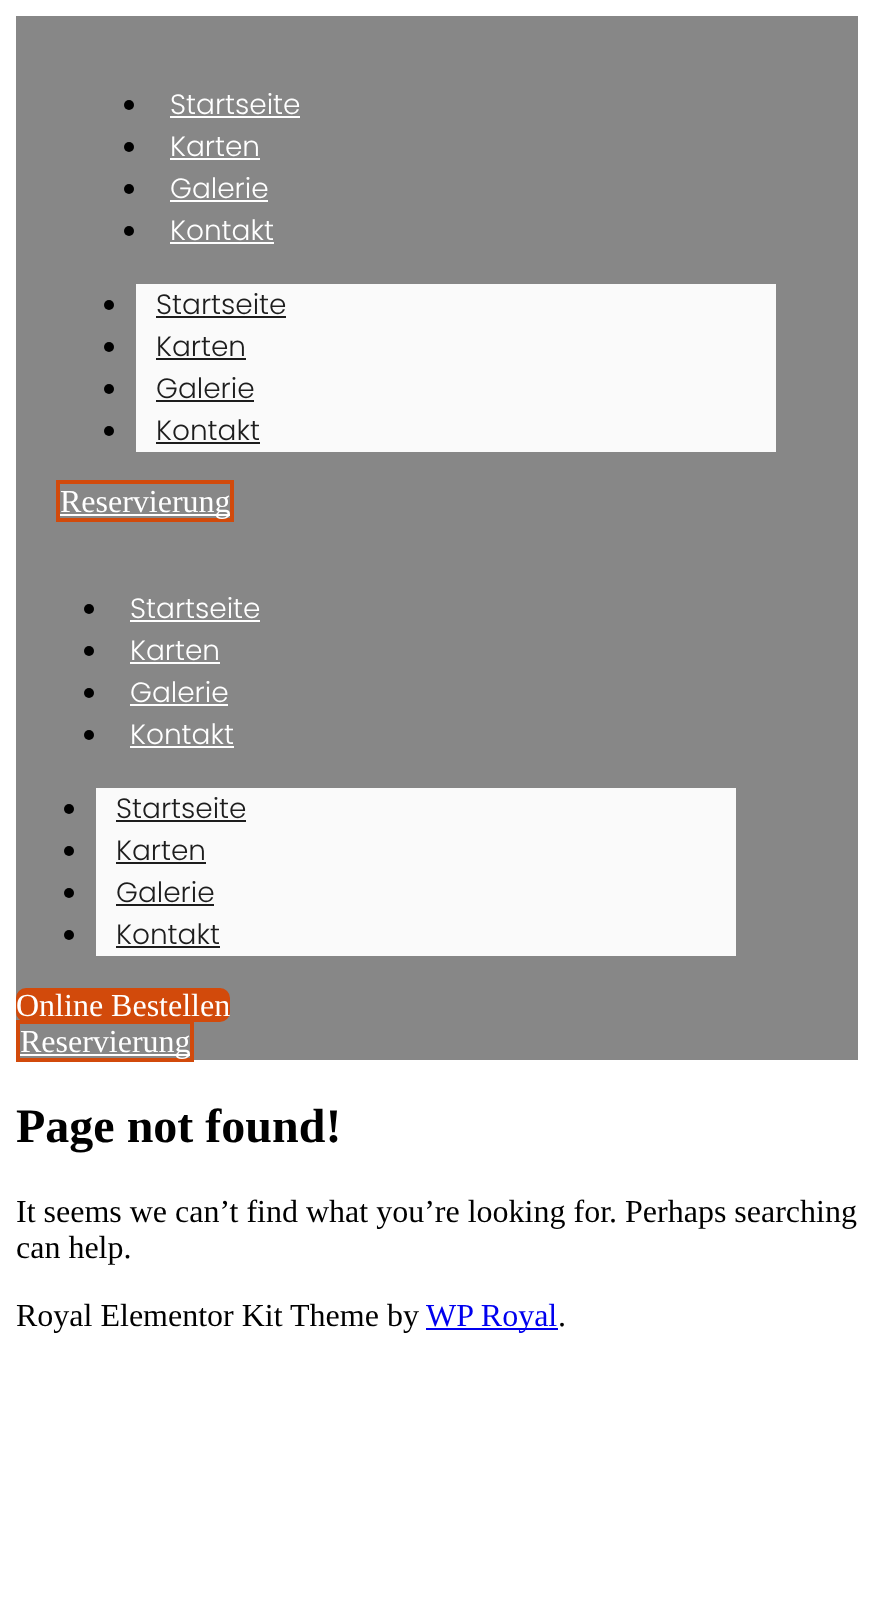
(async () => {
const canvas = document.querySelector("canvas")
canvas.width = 874
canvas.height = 1607
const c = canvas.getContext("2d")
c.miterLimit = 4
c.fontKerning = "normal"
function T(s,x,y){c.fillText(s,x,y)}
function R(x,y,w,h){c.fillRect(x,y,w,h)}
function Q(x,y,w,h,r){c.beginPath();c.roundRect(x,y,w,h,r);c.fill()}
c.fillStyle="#fff"
R(0,0,874,1607)
c.fillStyle="#878787"
R(16,16,842,1044)
c.fillStyle="#000"
c.beginPath()
c.arc(129,105,5,0,7)
c.fill()
c.font="300 28px Poppins"
c.fillStyle="#fff"
T("Startseite",170,114)
R(170,116,130,2)
c.fillStyle="#000"
c.beginPath()
c.arc(129,147,5,0,7)
c.fill()
c.fillStyle="#fff"
T("Karten",170,156)
R(170,158,90,2)
c.fillStyle="#000"
c.beginPath()
c.arc(129,189,5,0,7)
c.fill()
c.fillStyle="#fff"
T("Galerie",170,198)
R(170,200,98,2)
c.fillStyle="#000"
c.beginPath()
c.arc(129,231,5,0,7)
c.fill()
c.fillStyle="#fff"
T("Kontakt",170,240)
R(170,242,104,2)
c.fillStyle="#fafafa"
R(136,284,640,168)
c.fillStyle="#000"
c.beginPath()
c.arc(109,305,5,0,7)
c.fill()
c.fillStyle="#1d1d1d"
T("Startseite",156,314)
R(156,316,130,2)
c.fillStyle="#000"
c.beginPath()
c.arc(109,347,5,0,7)
c.fill()
c.fillStyle="#1d1d1d"
T("Karten",156,356)
R(156,358,90,2)
c.fillStyle="#000"
c.beginPath()
c.arc(109,389,5,0,7)
c.fill()
c.fillStyle="#1d1d1d"
T("Galerie",156,398)
R(156,400,98,2)
c.fillStyle="#000"
c.beginPath()
c.arc(109,431,5,0,7)
c.fill()
c.fillStyle="#1d1d1d"
T("Kontakt",156,440)
R(156,442,104,2)
c.strokeStyle="#d24a0b"
c.lineWidth=4
c.strokeRect(58,482,174,38)
c.fillStyle="#fff"
R(60,514,170,2)
c.font="32px Liberation Serif"
T("Reservierung",60,512)
c.fillStyle="#000"
c.beginPath()
c.arc(89,609,5,0,7)
c.fill()
c.font="300 28px Poppins"
c.fillStyle="#fff"
T("Startseite",130,618)
R(130,620,130,2)
c.fillStyle="#000"
c.beginPath()
c.arc(89,651,5,0,7)
c.fill()
c.fillStyle="#fff"
T("Karten",130,660)
R(130,662,90,2)
c.fillStyle="#000"
c.beginPath()
c.arc(89,693,5,0,7)
c.fill()
c.fillStyle="#fff"
T("Galerie",130,702)
R(130,704,98,2)
c.fillStyle="#000"
c.beginPath()
c.arc(89,735,5,0,7)
c.fill()
c.fillStyle="#fff"
T("Kontakt",130,744)
R(130,746,104,2)
c.fillStyle="#fafafa"
R(96,788,640,168)
c.fillStyle="#000"
c.beginPath()
c.arc(69,809,5,0,7)
c.fill()
c.fillStyle="#1d1d1d"
T("Startseite",116,818)
R(116,820,130,2)
c.fillStyle="#000"
c.beginPath()
c.arc(69,851,5,0,7)
c.fill()
c.fillStyle="#1d1d1d"
T("Karten",116,860)
R(116,862,90,2)
c.fillStyle="#000"
c.beginPath()
c.arc(69,893,5,0,7)
c.fill()
c.fillStyle="#1d1d1d"
T("Galerie",116,902)
R(116,904,98,2)
c.fillStyle="#000"
c.beginPath()
c.arc(69,935,5,0,7)
c.fill()
c.fillStyle="#1d1d1d"
T("Kontakt",116,944)
R(116,946,104,2)
c.fillStyle="#d24a0b"
Q(16,988,214,34,10)
c.font="32px Liberation Serif"
c.fillStyle="#fff"
T("Online Bestellen",16,1016)
c.strokeRect(18,1022,174,38)
R(20,1054,170,2)
T("Reservierung",20,1052)
c.font="bold 48px Liberation Serif"
c.fillStyle="#000"
T("Page not found!",16,1142)
c.font="32px Liberation Serif"
T("It seems we can’t find what you’re looking for. Perhaps searching",16,1222)
T("can help.",16,1258)
T("Royal Elementor Kit Theme by",16,1326)
c.fillStyle="#00e"
R(426,1328,132,2)
T("WP Royal",426,1326)
c.fillStyle="#000"
T(".",558,1326)
})()
